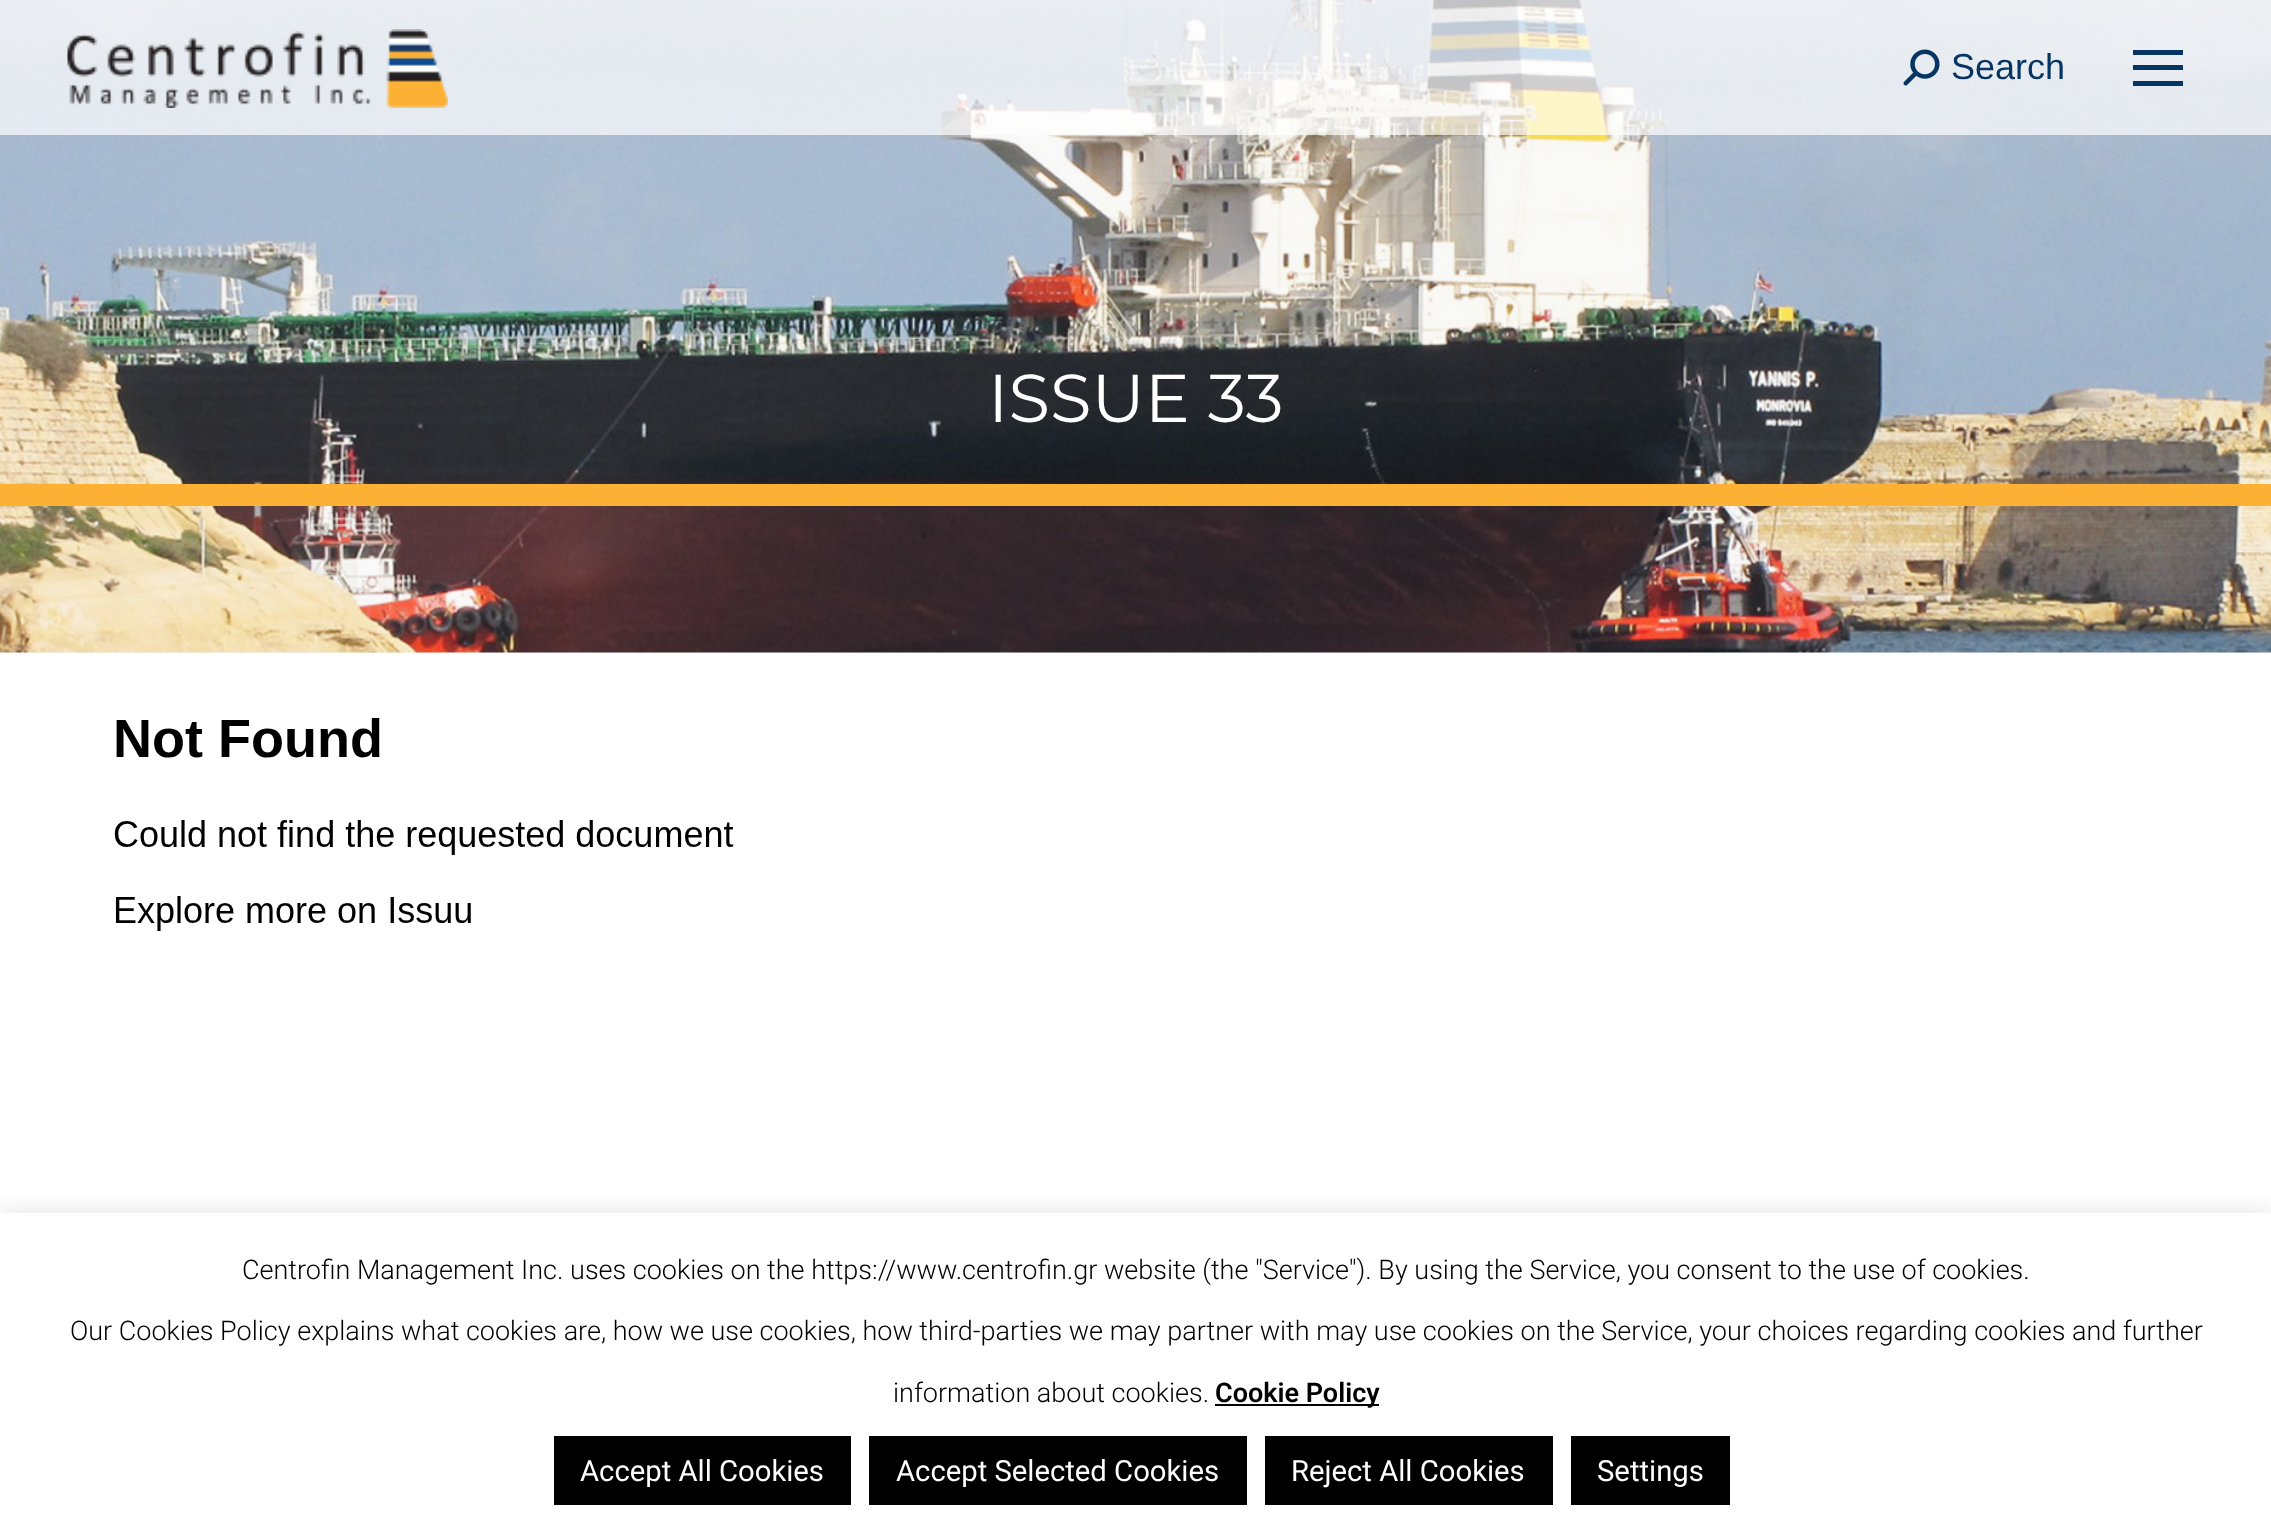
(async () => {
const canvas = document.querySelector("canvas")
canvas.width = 2271
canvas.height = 1532
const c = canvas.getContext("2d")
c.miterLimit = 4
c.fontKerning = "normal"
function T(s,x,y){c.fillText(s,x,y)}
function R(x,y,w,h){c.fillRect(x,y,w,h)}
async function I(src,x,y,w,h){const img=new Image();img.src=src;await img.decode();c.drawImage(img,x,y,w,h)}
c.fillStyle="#fff"
R(0,0,2271,1532)
c.fillStyle="#f7f7f7"
R(0,652,2271,1)
await I("3.png",0,0,2271,653)
c.fillStyle="#ffffffb3"
R(0,0,2271,135)
await I("1.png",67,29,381,79)
await I("2.png",1903,49,37,37)
c.font="36px Liberation Sans"
c.fillStyle="#063563"
T("Search",1951,79)
R(2133,50,50,5)
R(2133,65,50,5)
R(2133,81,50,5)
c.font="67.5px Montserrat"
c.fillStyle="#fff"
T("ISSUE 33",988,422)
c.fillStyle="#fcb134"
R(0,484,2271,22)
await I("4.png",114,718,620,213)
c.save()
c.beginPath()
c.rect(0,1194,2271,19)
c.clip()
c.fillStyle="#acabab4d"
c.filter="blur(11px)"
c.beginPath()
c.rect(0,1211,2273,319)
c.fill()
c.filter="none"
c.restore()
c.font="300 27px Roboto"
c.fillStyle="#000"
T("Centrofin Management Inc. uses cookies on the https://www.centrofin.gr website (the \"Service\"). By using the Service, you consent to the use of cookies.",242,1279)
T("Our Cookies Policy explains what cookies are, how we use cookies, how third-parties we may partner with may use cookies on the Service, your choices regarding cookies and further",70,1340)
T("information about cookies.",893,1402)
R(1215,1404,164,2)
c.font="600 27px Roboto"
T("Cookie Policy",1215,1402)
R(554,1436,297,69)
c.font="29.25px Roboto"
c.fillStyle="#fff"
T("Accept All Cookies",580,1481)
c.fillStyle="#000"
R(869,1436,378,69)
c.fillStyle="#fff"
T("Accept Selected Cookies",896,1481)
c.fillStyle="#000"
R(1265,1436,288,69)
c.fillStyle="#fff"
T("Reject All Cookies",1291,1481)
c.fillStyle="#000"
R(1571,1436,159,69)
c.fillStyle="#fff"
T("Settings",1597,1481)
})()
